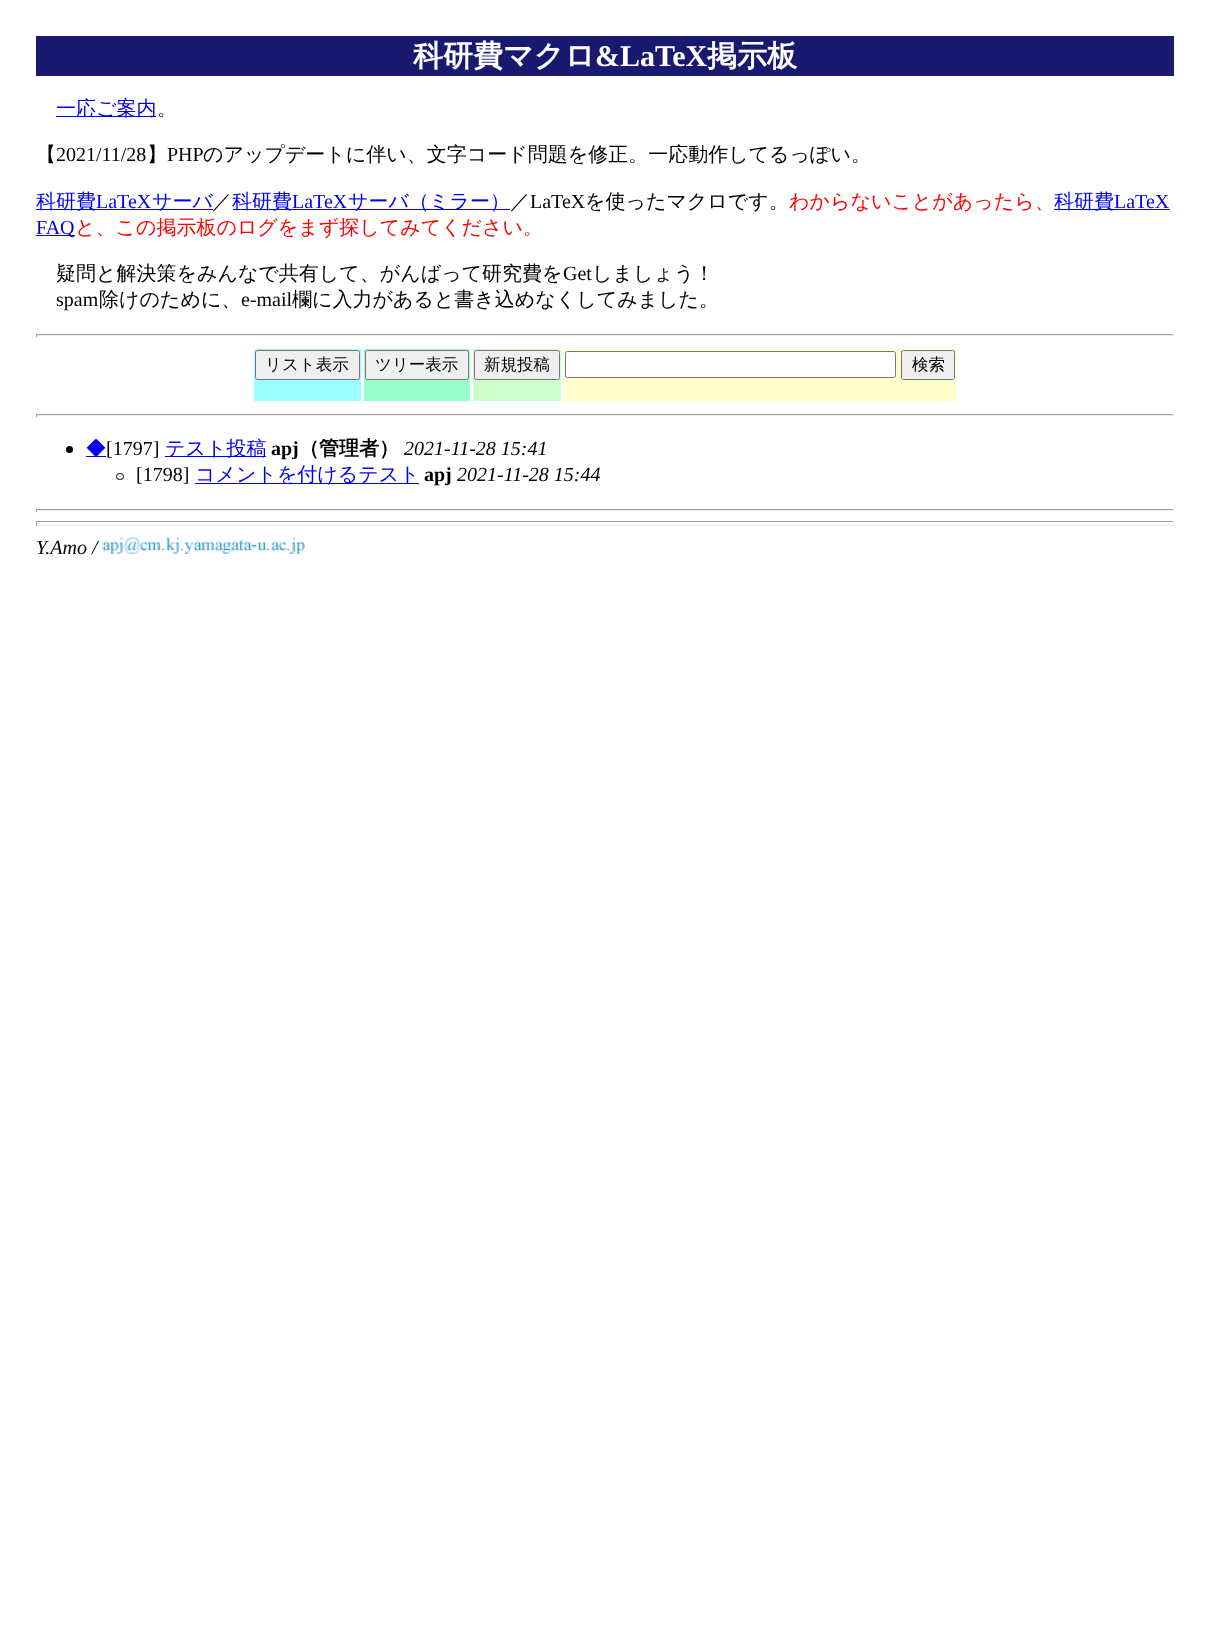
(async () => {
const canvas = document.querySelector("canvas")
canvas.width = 1209
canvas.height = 1639
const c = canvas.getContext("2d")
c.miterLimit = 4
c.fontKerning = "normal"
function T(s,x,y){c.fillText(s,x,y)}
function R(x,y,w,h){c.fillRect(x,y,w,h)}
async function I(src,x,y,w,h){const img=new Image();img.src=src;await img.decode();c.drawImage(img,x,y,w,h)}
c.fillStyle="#fff"
R(0,0,1209,1639)
c.fillStyle="#191970"
R(36,36,1138,40)
c.font="bold 30px WenQuanYi Zen Hei"
c.fillStyle="#fff"
T("科研費マクロ",413,66)
c.font="bold 30px Liberation Serif"
T("&LaTeX",595,66)
c.font="bold 30px WenQuanYi Zen Hei"
T("掲示板",707,66)
c.fillStyle="#00e"
R(56,116,100,1)
c.font="500 20px WenQuanYi Zen Hei"
T("一応ご案内",56,115)
c.fillStyle="#000"
T("。",157,115)
T("【",36,161)
c.font="20px Liberation Serif"
T("2021/11/28",56,161)
c.font="500 20px WenQuanYi Zen Hei"
T("】",147,161)
c.font="20px Liberation Serif"
T("PHP",167,161)
c.font="500 20px WenQuanYi Zen Hei"
T("のアップデートに伴い、文字コード問題を修正。一応動作してるっぽい。",203,161)
c.fillStyle="#00e"
R(36,209,177,1)
T("科研費",36,208)
c.font="20px Liberation Serif"
T("LaTeX",96,208)
c.font="500 20px WenQuanYi Zen Hei"
T("サーバ",152,208)
c.fillStyle="#000"
T("／",212,208)
c.fillStyle="#00e"
R(233,209,277,1)
T("科研費",232,208)
c.font="20px Liberation Serif"
T("LaTeX",292,208)
c.font="500 20px WenQuanYi Zen Hei"
T("サーバ（ミラー）",348,208)
c.fillStyle="#000"
T("／",510,208)
c.font="20px Liberation Serif"
T("LaTeX",530,208)
c.font="500 20px WenQuanYi Zen Hei"
T("を使ったマクロです。",585,208)
c.fillStyle="#f00"
T("わからないことがあったら、",789,208)
c.fillStyle="#00e"
R(1054,209,116,1)
T("科研費",1054,208)
c.font="20px Liberation Serif"
T("LaTeX",1114,208)
R(36,235,39,1)
T("FAQ",36,234)
c.font="500 20px WenQuanYi Zen Hei"
c.fillStyle="#f00"
T("と、この掲示板のログをまず探してみてください。",75,234)
c.fillStyle="#000"
T("疑問と解決策をみんなで共有して、がんばって研究費を",56,280)
c.font="20px Liberation Serif"
T("Get",563,280)
c.font="500 20px WenQuanYi Zen Hei"
T("しましょう！",592,280)
c.font="20px Liberation Serif"
T("spam",56,306)
c.font="500 20px WenQuanYi Zen Hei"
T("除けのために、",99,306)
c.font="20px Liberation Serif"
T("e-mail",241,306)
c.font="500 20px WenQuanYi Zen Hei"
T("欄に入力があると書き込めなくしてみました。",292,306)
c.fillStyle="#9f9f9f"
R(36,334,1138,1)
c.fillStyle="#eee"
R(1173,334,1,3)
R(36,335,1138,1)
c.fillStyle="#9f9f9f"
R(36,334,1,3)
c.fillStyle="#9ff"
R(254,349,107,52)
c.fillStyle="#efefef"
c.beginPath()
c.roundRect(255.5,350.5,104,29,2)
c.fill()
c.strokeStyle="#767676"
c.stroke()
c.font="500 16.5px WenQuanYi Zen Hei"
c.fillStyle="#000"
T("リスト表示",265,370)
c.fillStyle="#9fc"
R(364,349,106,52)
c.fillStyle="#efefef"
c.beginPath()
c.roundRect(365.5,350.5,103,29,2)
c.fill()
c.stroke()
c.fillStyle="#000"
T("ツリー表示",375,370)
c.fillStyle="#cfc"
R(473,349,88,52)
c.fillStyle="#efefef"
c.beginPath()
c.roundRect(474.5,350.5,85,29,2)
c.fill()
c.stroke()
c.fillStyle="#000"
T("新規投稿",484,370)
c.fillStyle="#ffc"
R(564,349,392,52)
c.fillStyle="#fff"
c.beginPath()
c.roundRect(565.5,351.5,330,26,2)
c.fill()
c.stroke()
c.fillStyle="#efefef"
c.beginPath()
c.roundRect(901.5,350.5,53,29,2)
c.fill()
c.stroke()
c.fillStyle="#000"
T("検索",912,370)
c.fillStyle="#9f9f9f"
R(36,414,1138,1)
c.fillStyle="#eee"
R(1173,414,1,3)
R(36,415,1138,1)
c.fillStyle="#9f9f9f"
R(36,414,1,3)
c.fillStyle="#000"
c.beginPath()
c.arc(69.5,449.5,3.5,0,7)
c.fill()
c.fillStyle="#00e"
R(86,456,20,1)
c.font="500 20px WenQuanYi Zen Hei"
T("◆",86,455)
c.font="20px Liberation Serif"
c.fillStyle="#000"
T("[1797]",106,455)
c.fillStyle="#00e"
R(165,456,101,1)
c.font="500 20px WenQuanYi Zen Hei"
T("テスト投稿",165,455)
c.font="bold 20px Liberation Serif"
c.fillStyle="#000"
T("apj",271,455)
c.font="bold 20px WenQuanYi Zen Hei"
T("（管理者）",299,455)
c.font="italic 20px Liberation Serif"
T("2021-11-28 15:41",404,455)
c.beginPath()
c.roundRect(116.5,473.5,7,6,3)
c.strokeStyle="#000"
c.stroke()
c.font="20px Liberation Serif"
T("[1798]",136,481)
c.fillStyle="#00e"
R(195,483,224,1)
c.font="500 20px WenQuanYi Zen Hei"
T("コメントを付けるテスト",195,481)
c.font="bold 20px Liberation Serif"
c.fillStyle="#000"
T("apj",424,481)
c.font="italic 20px Liberation Serif"
T("2021-11-28 15:44",457,481)
c.fillStyle="#9f9f9f"
R(36,509,1138,1)
c.fillStyle="#eee"
R(1173,509,1,3)
R(36,510,1138,1)
c.fillStyle="#9f9f9f"
R(36,509,1,3)
R(36,521,1138,1)
c.fillStyle="#eee"
R(1173,521,1,5)
R(36,525,1138,1)
c.fillStyle="#9f9f9f"
R(36,521,1,5)
c.fillStyle="#000"
T("Y.Amo /",36,554)
await I("1.png",102,537,203,17)
})()
